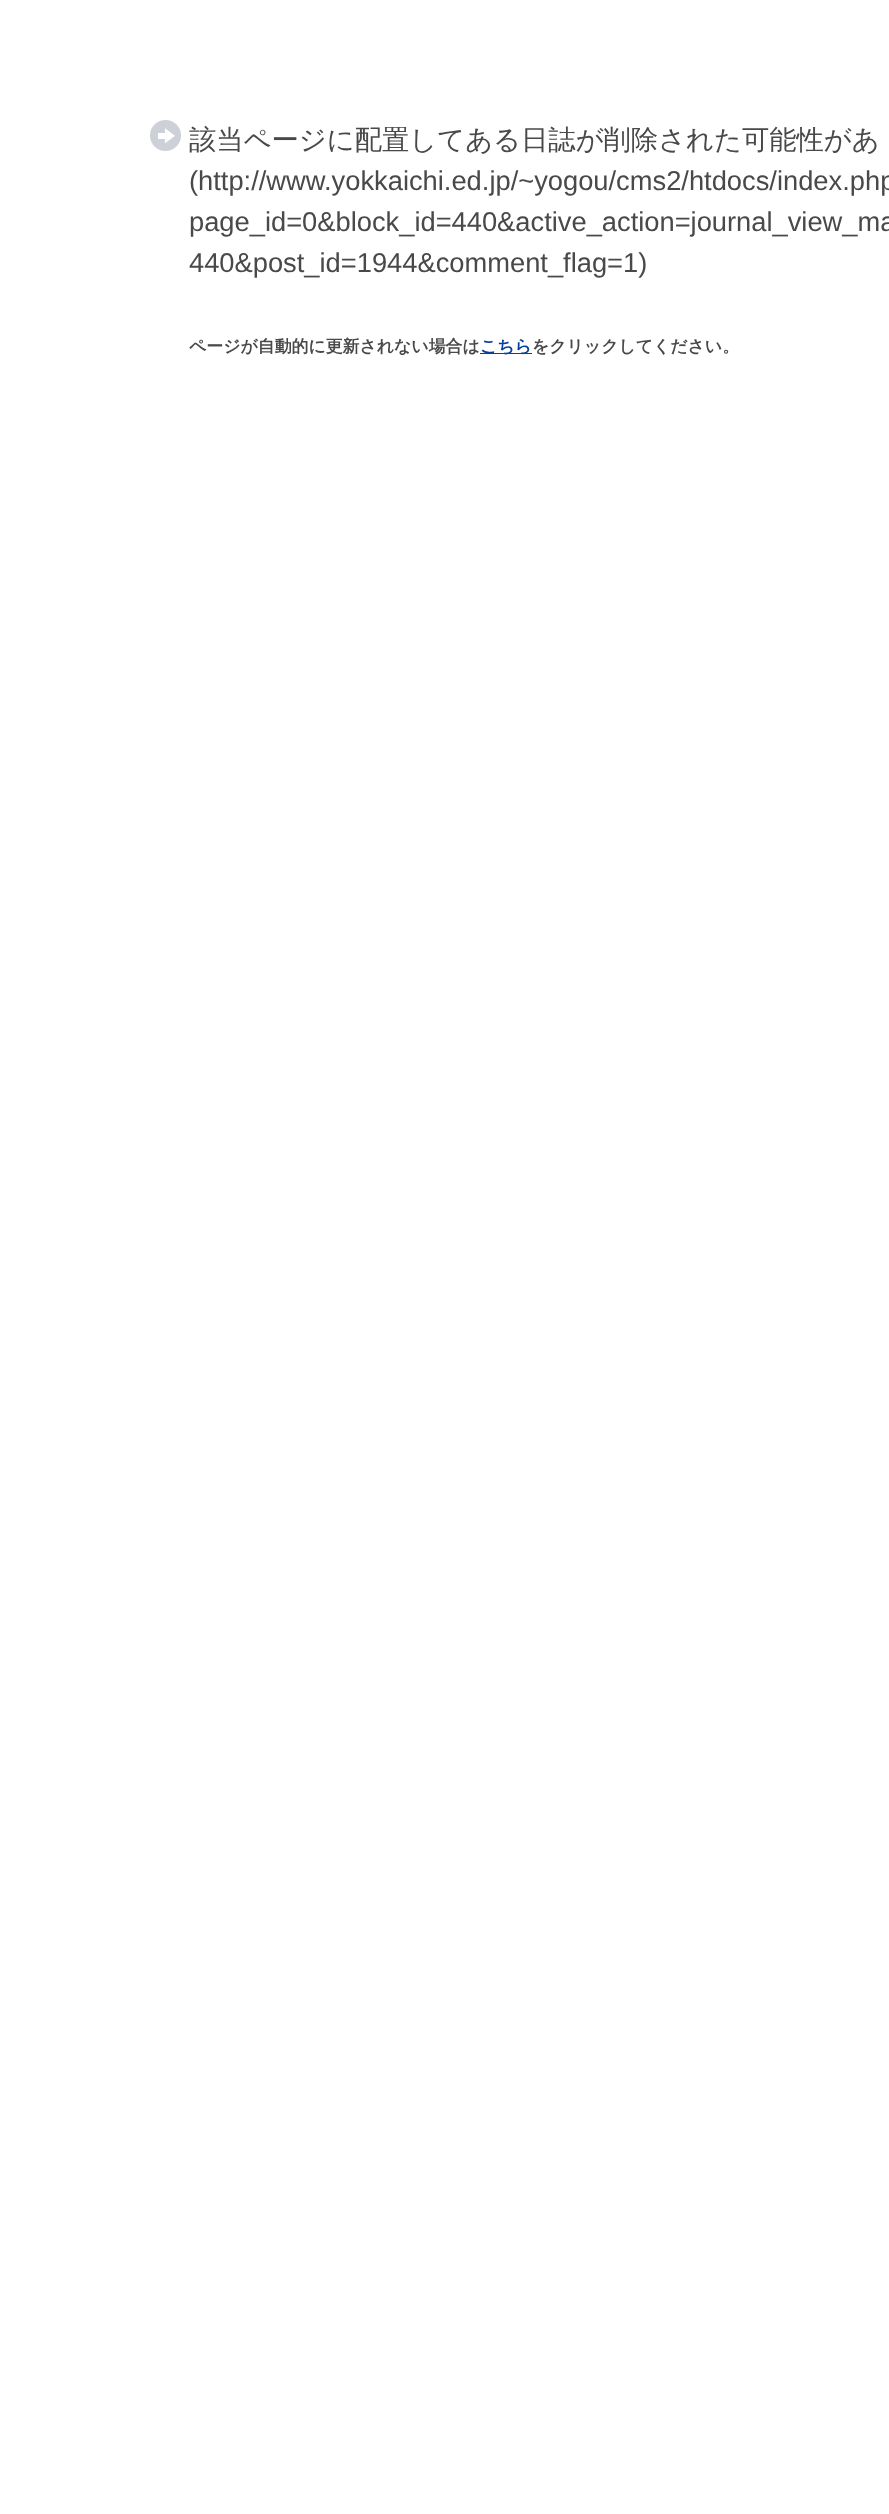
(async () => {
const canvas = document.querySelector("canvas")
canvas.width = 889
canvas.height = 2514
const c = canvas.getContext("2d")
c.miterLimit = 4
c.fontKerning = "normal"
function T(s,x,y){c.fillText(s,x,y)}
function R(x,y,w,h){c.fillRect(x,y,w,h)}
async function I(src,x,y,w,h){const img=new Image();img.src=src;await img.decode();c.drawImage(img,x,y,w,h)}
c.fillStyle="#fff"
R(0,0,889,2514)
await I("1.png",150,120,31,31)
c.font="500 27.3px WenQuanYi Zen Hei"
c.fillStyle="#494949"
T("該当ページに配置してある日誌が削除された可能性があ",189,149)
c.font="27.3px Liberation Sans"
T("(http://www.yokkaichi.ed.jp/~yogou/cms2/htdocs/index.php",189,190)
T("page_id=0&block_id=440&active_action=journal_view_ma",189,231)
T("440&post_id=1944&comment_flag=1)",189,272)
c.font="bold 16.9px WenQuanYi Zen Hei"
T("ページが自動的に更新されない場合は",189,352)
c.fillStyle="#04419a"
R(480,353,52,1)
T("こちら",480,352)
c.fillStyle="#494949"
T("をクリックしてください。",532,352)
})()
